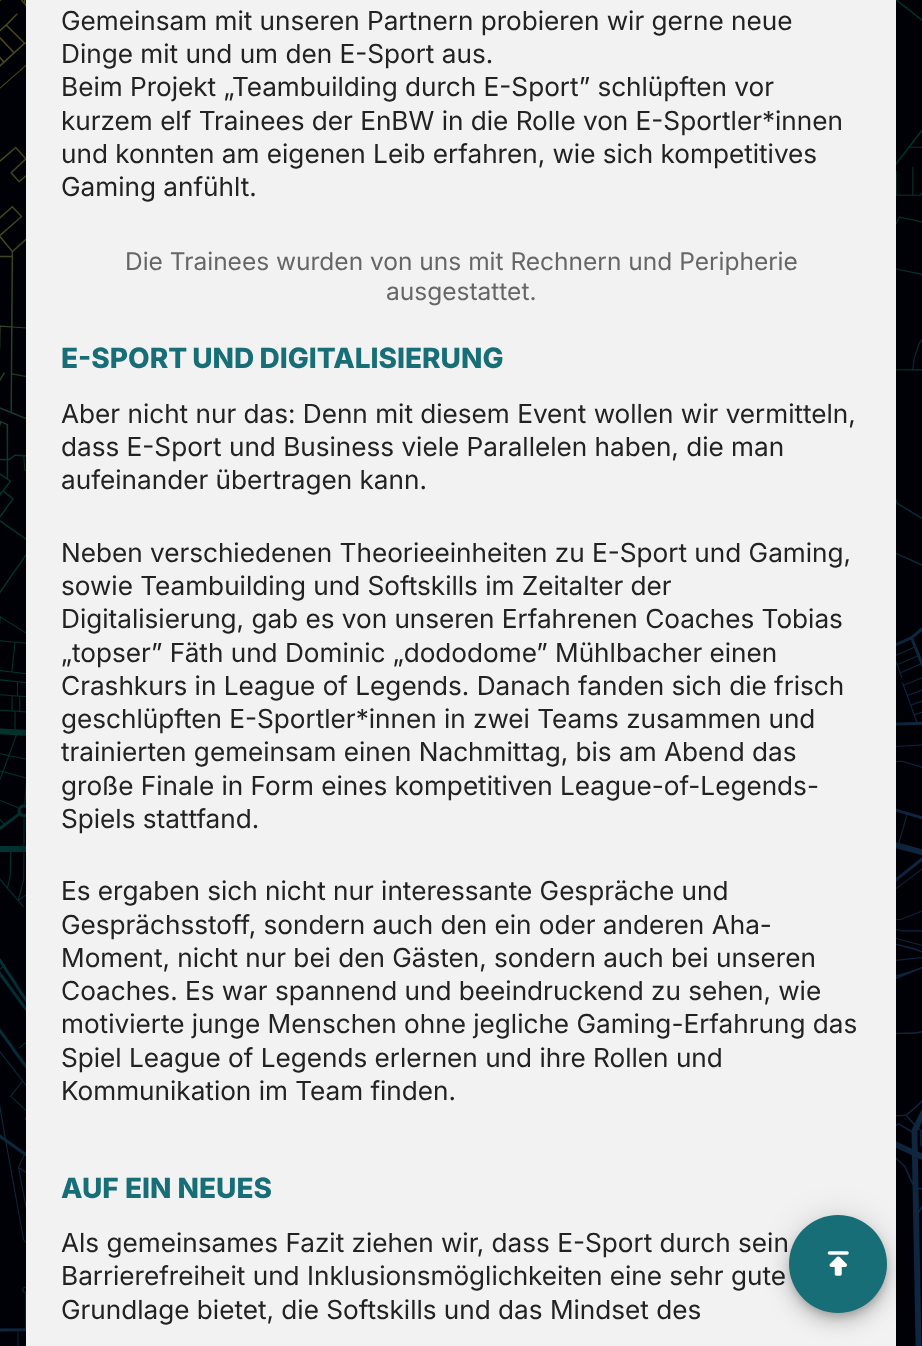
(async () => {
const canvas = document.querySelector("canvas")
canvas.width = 922
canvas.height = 1346
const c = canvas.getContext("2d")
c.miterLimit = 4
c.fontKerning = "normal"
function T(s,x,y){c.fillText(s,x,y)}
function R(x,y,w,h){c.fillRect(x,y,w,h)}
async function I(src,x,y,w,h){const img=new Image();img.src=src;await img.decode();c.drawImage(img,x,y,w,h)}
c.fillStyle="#000208"
R(0,0,922,1346)
await I("1.png",0,0,922,1346)
c.fillStyle="#0000004d"
c.filter="blur(17.5px)"
c.beginPath()
c.rect(26,-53,870,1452)
c.fill()
c.filter="none"
c.fillStyle="#f2f2f2"
R(26,0,870,1346)
c.font="26.25px 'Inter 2'"
c.fillStyle="#222"
T("Gemeinsam mit unseren Partnern probieren wir gerne neue",61,30)
T("Dinge mit und um den E-Sport aus.",61,63)
T("Beim Projekt „Teambuilding durch E-Sport” schlüpften vor",61,96)
T("kurzem elf Trainees der EnBW in die Rolle von E-Sportler*innen",61,130)
T("und konnten am eigenen Leib erfahren, wie sich kompetitives",61,163)
T("Gaming anfühlt.",61,196)
c.font="24.5px Inter"
c.fillStyle="#666"
T("Die Trainees wurden von uns mit Rechnern und Peripherie",125,270)
T("ausgestattet.",386,300)
c.wordSpacing="-1px"
c.font="800 28px Inter"
c.fillStyle="#176e76"
T("E-SPORT UND DIGITALISIERUNG",61,368)
c.wordSpacing="0px"
c.font="26.25px 'Inter 2'"
c.fillStyle="#222"
T("Aber nicht nur das: Denn mit diesem Event wollen wir vermitteln,",61,423)
T("dass E-Sport und Business viele Parallelen haben, die man",61,456)
T("aufeinander übertragen kann.",61,489)
T("Neben verschiedenen Theorieeinheiten zu E-Sport und Gaming,",61,562)
T("sowie Teambuilding und Softskills im Zeitalter der",61,595)
T("Digitalisierung, gab es von unseren Erfahrenen Coaches Tobias",61,628)
T("„topser” Fäth und Dominic „dododome” Mühlbacher einen",61,662)
T("Crashkurs in League of Legends. Danach fanden sich die frisch",61,695)
T("geschlüpften E-Sportler*innen in zwei Teams zusammen und",61,728)
T("trainierten gemeinsam einen Nachmittag, bis am Abend das",61,761)
T("große Finale in Form eines kompetitiven League-of-Legends-",61,795)
T("Spiels stattfand.",61,828)
T("Es ergaben sich nicht nur interessante Gespräche und",61,900)
T("Gesprächsstoff, sondern auch den ein oder anderen Aha-",61,934)
T("Moment, nicht nur bei den Gästen, sondern auch bei unseren",61,967)
T("Coaches. Es war spannend und beeindruckend zu sehen, wie",61,1000)
T("motivierte junge Menschen ohne jegliche Gaming-Erfahrung das",61,1033)
T("Spiel League of Legends erlernen und ihre Rollen und",61,1067)
T("Kommunikation im Team finden.",61,1100)
c.font="800 28px Inter"
c.fillStyle="#176e76"
T("AUF EIN NEUES",61,1198)
c.font="26.25px 'Inter 2'"
c.fillStyle="#222"
T("Als gemeinsames Fazit ziehen wir, dass E-Sport durch sein",61,1252)
T("Barrierefreiheit und Inklusionsmöglichkeiten eine sehr gute",61,1285)
T("Grundlage bietet, die Softskills und das Mindset des",61,1319)
c.fillStyle="#0000001f"
c.filter="blur(16px)"
c.beginPath()
c.roundRect(789,1216,98,98,49)
c.fill()
c.filter="none"
c.fillStyle="#00000024"
c.filter="blur(9px)"
c.beginPath()
c.roundRect(789,1225,98,98,49)
c.fill()
c.filter="none"
c.fillStyle="#00000033"
c.filter="blur(4.5px)"
c.beginPath()
c.roundRect(791,1222,95,94,47)
c.fill()
c.filter="none"
c.fillStyle="#176e76"
c.beginPath()
c.arc(838,1264,49,0,7)
c.fill()
await I("2.png",827,1251,22,25)
})()
